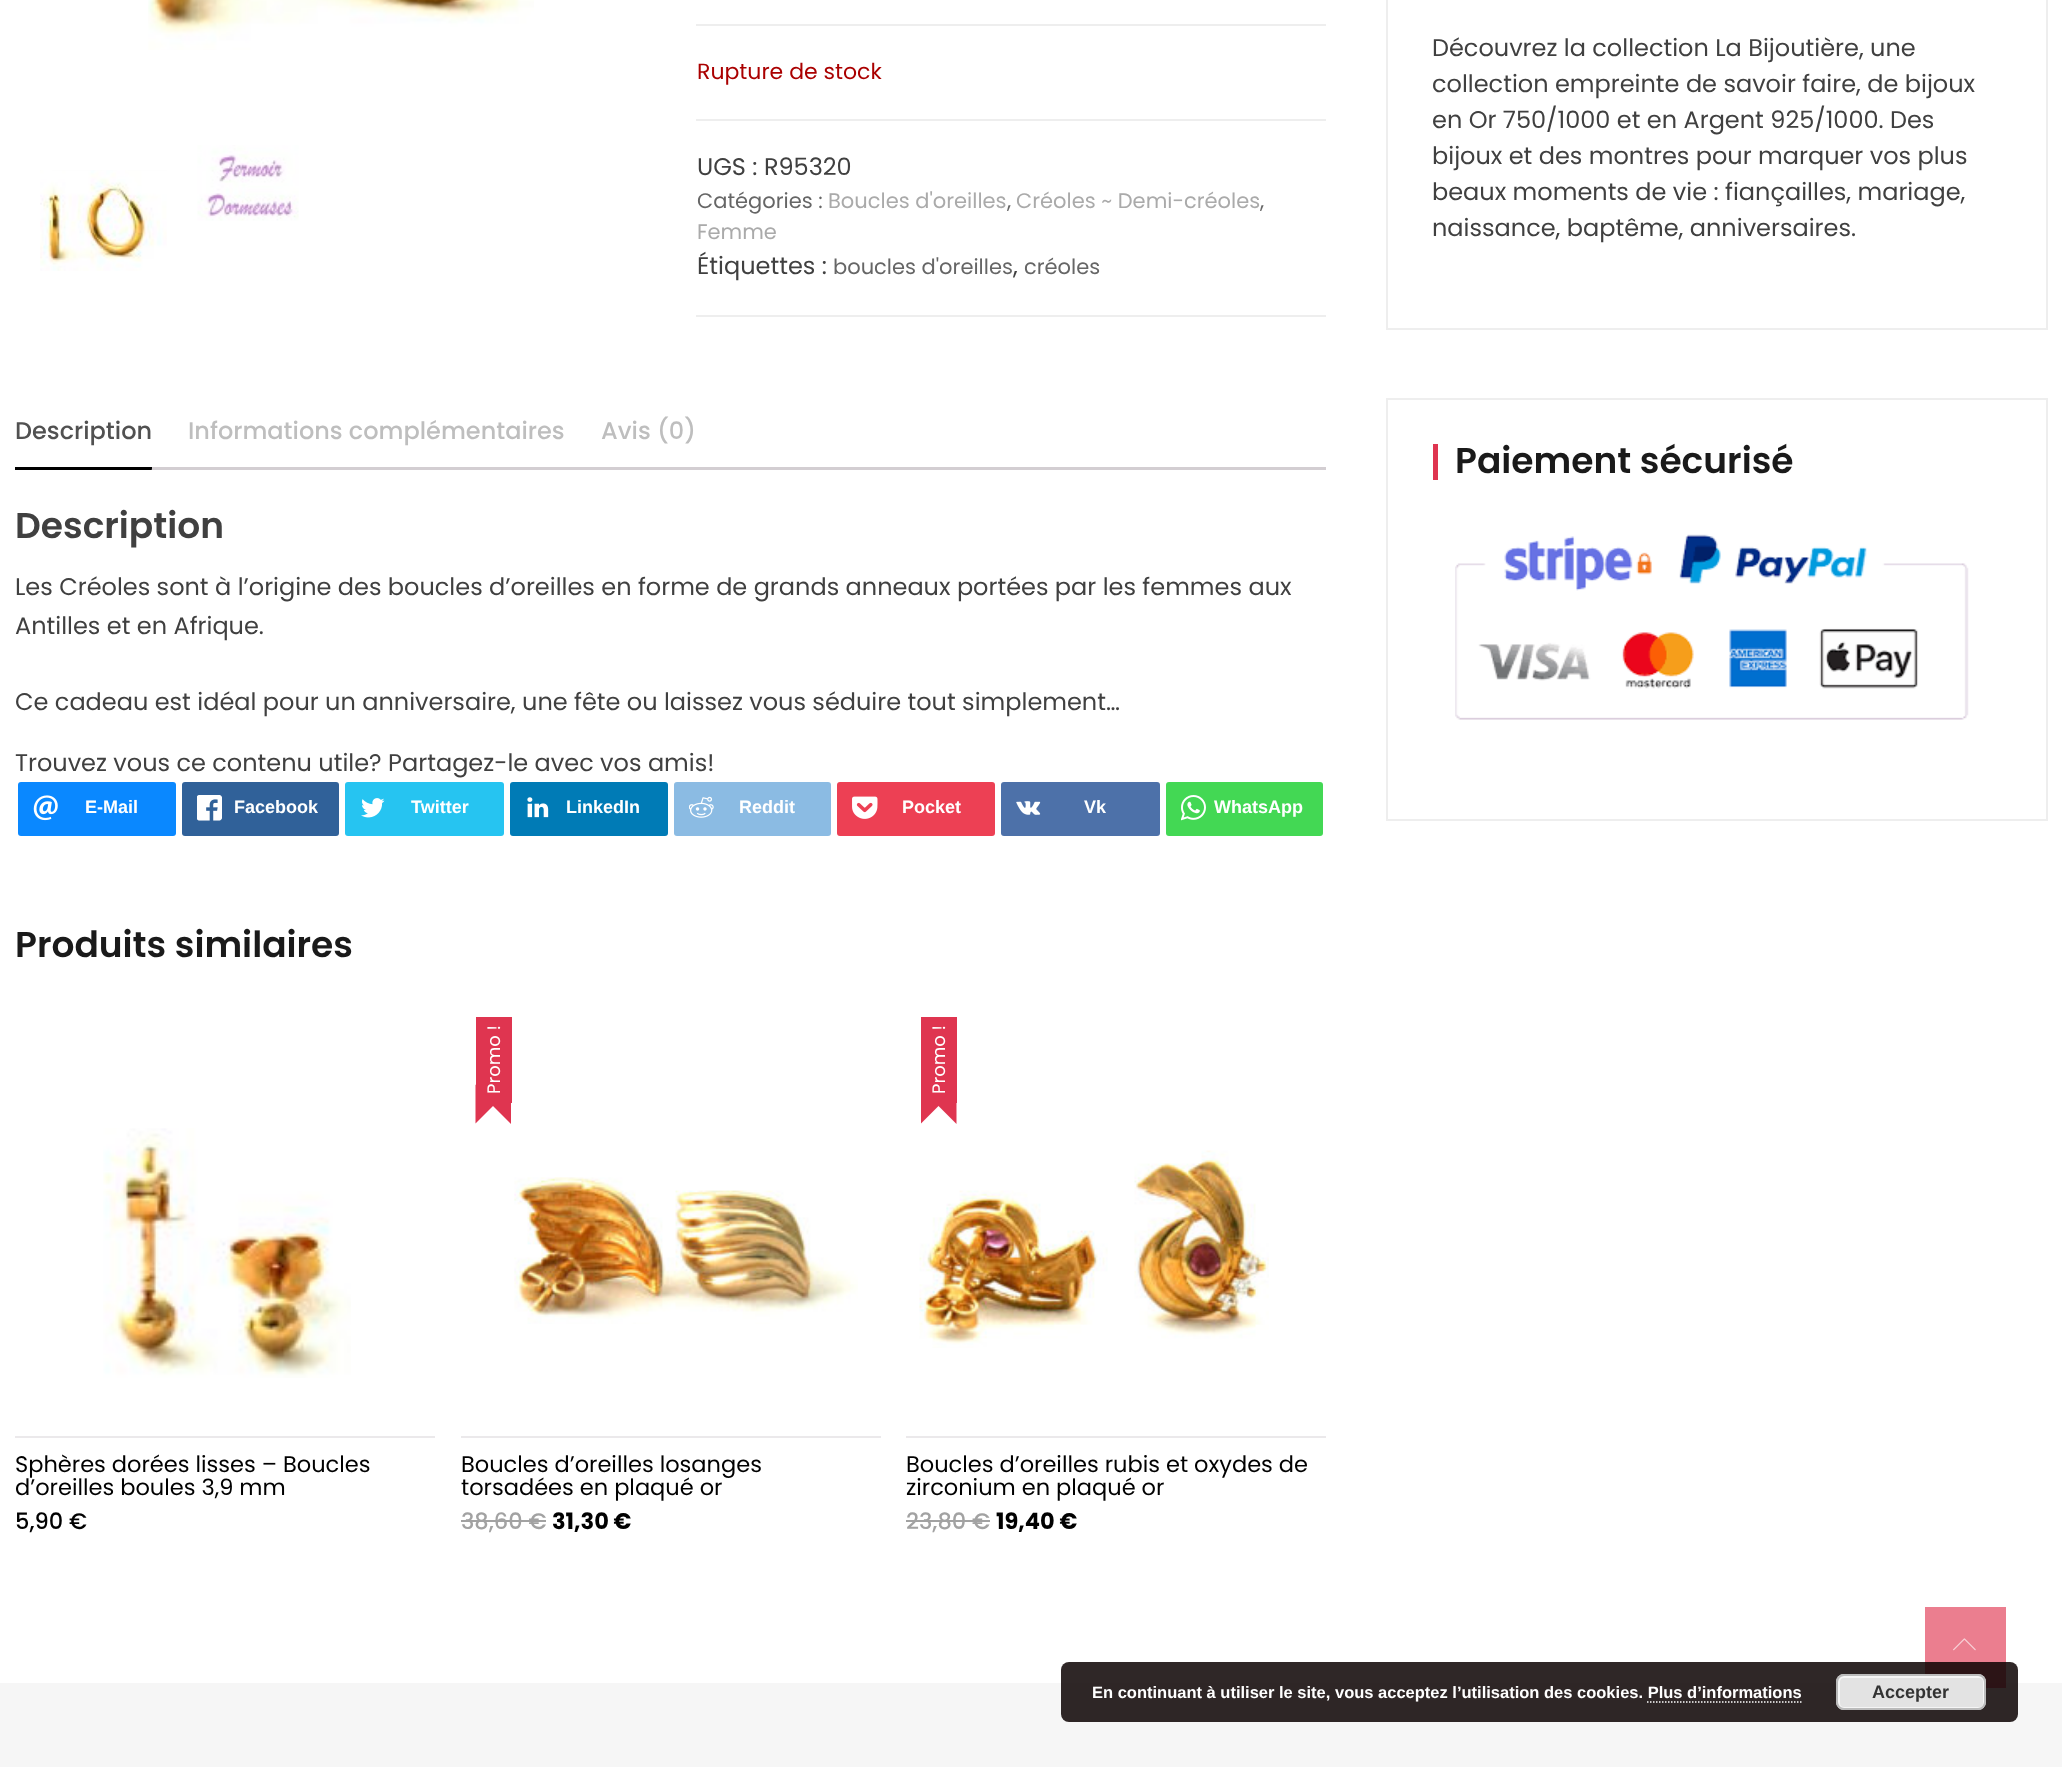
(async () => {
const canvas = document.querySelector("canvas")
canvas.width = 2062
canvas.height = 1767
const c = canvas.getContext("2d")
c.miterLimit = 4
c.fontKerning = "normal"
function T(s,x,y){c.fillText(s,x,y)}
function R(x,y,w,h){c.fillRect(x,y,w,h)}
function Q(x,y,w,h,r){c.beginPath();c.roundRect(x,y,w,h,r);c.fill()}
async function I(src,x,y,w,h){const img=new Image();img.src=src;await img.decode();c.drawImage(img,x,y,w,h)}
let path
c.fillStyle="#fff"
R(0,0,2062,1767)
c.fillStyle="#eb7e8f"
R(1925,1607,81,76)
await I("1.png",148,0,386,50)
await I("2.png",40,170,127,101)
await I("3.png",197,145,102,76)
c.fillStyle="#eee"
R(696,24,630,2)
c.font="22px Poppins"
c.fillStyle="#a00"
T("Rupture de stock",697,79)
c.fillStyle="#eee"
R(696,119,630,2)
R(696,315,630,2)
c.font="24px Poppins"
c.fillStyle="#404040"
T("UGS : R95320",697,175)
c.font="21px Poppins"
c.fillStyle="#666"
T("Catégories :",697,208)
c.fillStyle="#aaa"
T("Boucles d'oreilles",828,208)
c.fillStyle="#666"
T(",",1007,208)
c.fillStyle="#aaa"
T("Créoles ~ Demi-créoles",1016,208)
c.fillStyle="#666"
T(",",1260,208)
c.fillStyle="#aaa"
T("Femme",697,239)
c.font="24px Poppins"
c.fillStyle="#404040"
T("Étiquettes :",697,274)
c.font="21px Poppins"
c.fillStyle="#666"
T("boucles d'oreilles",833,274)
c.font="24px Poppins"
c.fillStyle="#404040"
T(",",1013,274)
c.font="21px Poppins"
c.fillStyle="#666"
T("créoles",1024,274)
c.font="500 24px Poppins"
c.fillStyle="#515151"
T("Description",15,439)
c.save()
c.beginPath()
c.rect(15,395,1311,75)
c.clip()
c.fillStyle="#000"
c.beginPath()
c.roundRect(15,467,137,7,[0,0,6,0])
c.fill()
c.restore()
c.fillStyle="#bebebe"
T("Informations complémentaires",188,439)
T("Avis (0)",601,439)
c.fillStyle="#d3ced2"
R(152,467,1174,3)
c.font="600 36px Poppins"
c.fillStyle="#404040"
T("Description",15,538)
c.font="24px Poppins"
T("Les Créoles sont à l’origine des boucles d’oreilles en forme de grands anneaux portées par les femmes aux",15,595)
T("Antilles et en Afrique.",15,634)
T("Ce cadeau est idéal pour un anniversaire, une fête ou laissez vous séduire tout simplement…",15,710)
T("Trouvez vous ce contenu utile? Partagez-le avec vos amis!",15,771)
c.fillStyle="#0a88ff"
Q(18,782,158,54,3)
await I("4.png",33,795,25,26)
c.font="bold 18px Liberation Sans"
c.fillStyle="#fff"
T("E-Mail",85,813)
c.fillStyle="#306199"
Q(182,782,157,54,3)
await I("5.png",197,795,25,26)
c.fillStyle="#fff"
T("Facebook",234,813)
c.fillStyle="#26c4f1"
Q(345,782,159,54,3)
await I("6.png",361,798,24,20)
c.fillStyle="#fff"
T("Twitter",411,813)
c.fillStyle="#007bb6"
Q(510,782,158,54,3)
await I("7.png",527,797,22,21)
c.fillStyle="#fff"
T("LinkedIn",566,813)
c.fillStyle="#8bbbe3"
Q(674,782,157,54,3)
await I("8.png",689,796,25,22)
c.fillStyle="#fff"
T("Reddit",739,813)
c.fillStyle="#ed4054"
Q(837,782,158,54,3)
await I("9.png",852,796,26,23)
c.fillStyle="#fff"
T("Pocket",902,813)
c.fillStyle="#4d71a9"
Q(1001,782,159,54,3)
await I("10.png",1016,801,25,14)
c.fillStyle="#fff"
T("Vk",1084,813)
c.fillStyle="#43d854"
Q(1166,782,157,54,3)
await I("11.png",1181,795,25,26)
c.fillStyle="#fff"
T("WhatsApp",1214,813)
c.font="600 36px Poppins"
c.fillStyle="#1a1a1a"
T("Produits similaires",15,957)
await I("12.png",103,1128,248,250)
c.fillStyle="#ebe9eb"
R(15,1436,420,2)
c.font="22.5px Poppins"
c.fillStyle="#010101"
T("Sphères dorées lisses – Boucles",15,1472)
T("d’oreilles boules 3,9 mm",15,1495)
c.font="500 22.5px Poppins"
T("5,90 €",15,1529)
c.fillStyle="#df3550"
R(476,1017,36,86)
c.font="18px Poppins"
c.fillStyle="#fff"
c.save()
c.translate(500,1094)
c.rotate(-90 * Math.PI / 180)
c.fillText("Promo !",0,0)
c.restore()
c.fillStyle="#df3550"
path = new Path2D("M475.5 1123.5v-39l19.5 19.5z")
c.fill(path)
path = new Path2D("M511 1085v39l-19.5-19.5z")
c.fill(path)
await I("13.png",514,1177,344,147)
c.fillStyle="#ebe9eb"
R(461,1436,420,2)
c.font="22.5px Poppins"
c.fillStyle="#010101"
T("Boucles d’oreilles losanges",461,1472)
T("torsadées en plaqué or",461,1495)
c.font="500 22.5px Poppins"
c.fillStyle="#a2a2a2"
T("38,60 €",461,1529)
R(461,1520,85,2)
c.font="bold 22.5px Poppins"
c.fillStyle="#010101"
T("31,30 €",552,1529)
c.fillStyle="#df3550"
R(921,1017,36,86)
c.font="18px Poppins"
c.fillStyle="#fff"
c.save()
c.translate(945,1094)
c.rotate(-90 * Math.PI / 180)
c.fillText("Promo !",0,0)
c.restore()
c.fillStyle="#df3550"
path = new Path2D("M921 1123.5v-39l19.5 19.5z")
c.fill(path)
path = new Path2D("M956.5 1085v39l-19.5-19.5z")
c.fill(path)
await I("14.png",919,1150,350,198)
c.fillStyle="#ebe9eb"
R(906,1436,420,2)
c.font="22.5px Poppins"
c.fillStyle="#010101"
T("Boucles d’oreilles rubis et oxydes de",906,1472)
T("zirconium en plaqué or",906,1495)
c.font="500 22.5px Poppins"
c.fillStyle="#a2a2a2"
T("23,80 €",906,1529)
R(906,1520,84,2)
c.font="bold 22.5px Poppins"
c.fillStyle="#010101"
T("19,40 €",996,1529)
c.strokeStyle="#eee"
c.lineWidth=2
c.strokeRect(1387,-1,660,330)
c.font="24px Poppins"
c.fillStyle="#404040"
T("Découvrez la collection La Bijoutière, une",1432,56)
T("collection empreinte de savoir faire, de bijoux",1432,92)
T("en Or 750/1000 et en Argent 925/1000. Des",1432,128)
T("bijoux et des montres pour marquer vos plus",1432,164)
T("beaux moments de vie : fiançailles, mariage,",1432,200)
T("naissance, baptême, anniversaires.",1432,236)
c.strokeRect(1387,399,660,421)
c.fillStyle="#df3550"
R(1433,444,5,36)
c.font="600 36px Poppins"
c.fillStyle="#1a1a1a"
T("Paiement sécurisé",1455,473)
await I("15.png",1455,534,514,186)
await I("16.png",1953,1638,23,13)
c.fillStyle="#f6f6f6"
R(0,1683,2062,84)
c.fillStyle="#e77a8c"
R(1986,1683,20,5)
c.fillStyle="#0a0101d9"
Q(1061,1662,957,60,8)
c.font="bold 16.5px Liberation Sans"
c.fillStyle="#fff"
T("En continuant à utiliser le site, vous acceptez l’utilisation des cookies. Plus d’informations",1092,1698)
c.fillStyle="#e3e3e3"
Q(1836,1674,150,36,8)
c.beginPath()
c.roundRect(1839,1677,145,31,5)
c.strokeStyle="#f6f6f6"
c.stroke()
c.beginPath()
c.roundRect(1837,1675,148,34,7)
c.strokeStyle="#bbb"
c.stroke()
c.font="bold 18px Liberation Sans"
c.fillStyle="#333"
T("Accepter",1872,1698)
path = new Path2D("M1647 1702h154.5")
c.strokeStyle="#fff"
c.lineWidth=1.5
c.setLineDash([1.5,1.5])
c.stroke(path)
})()
